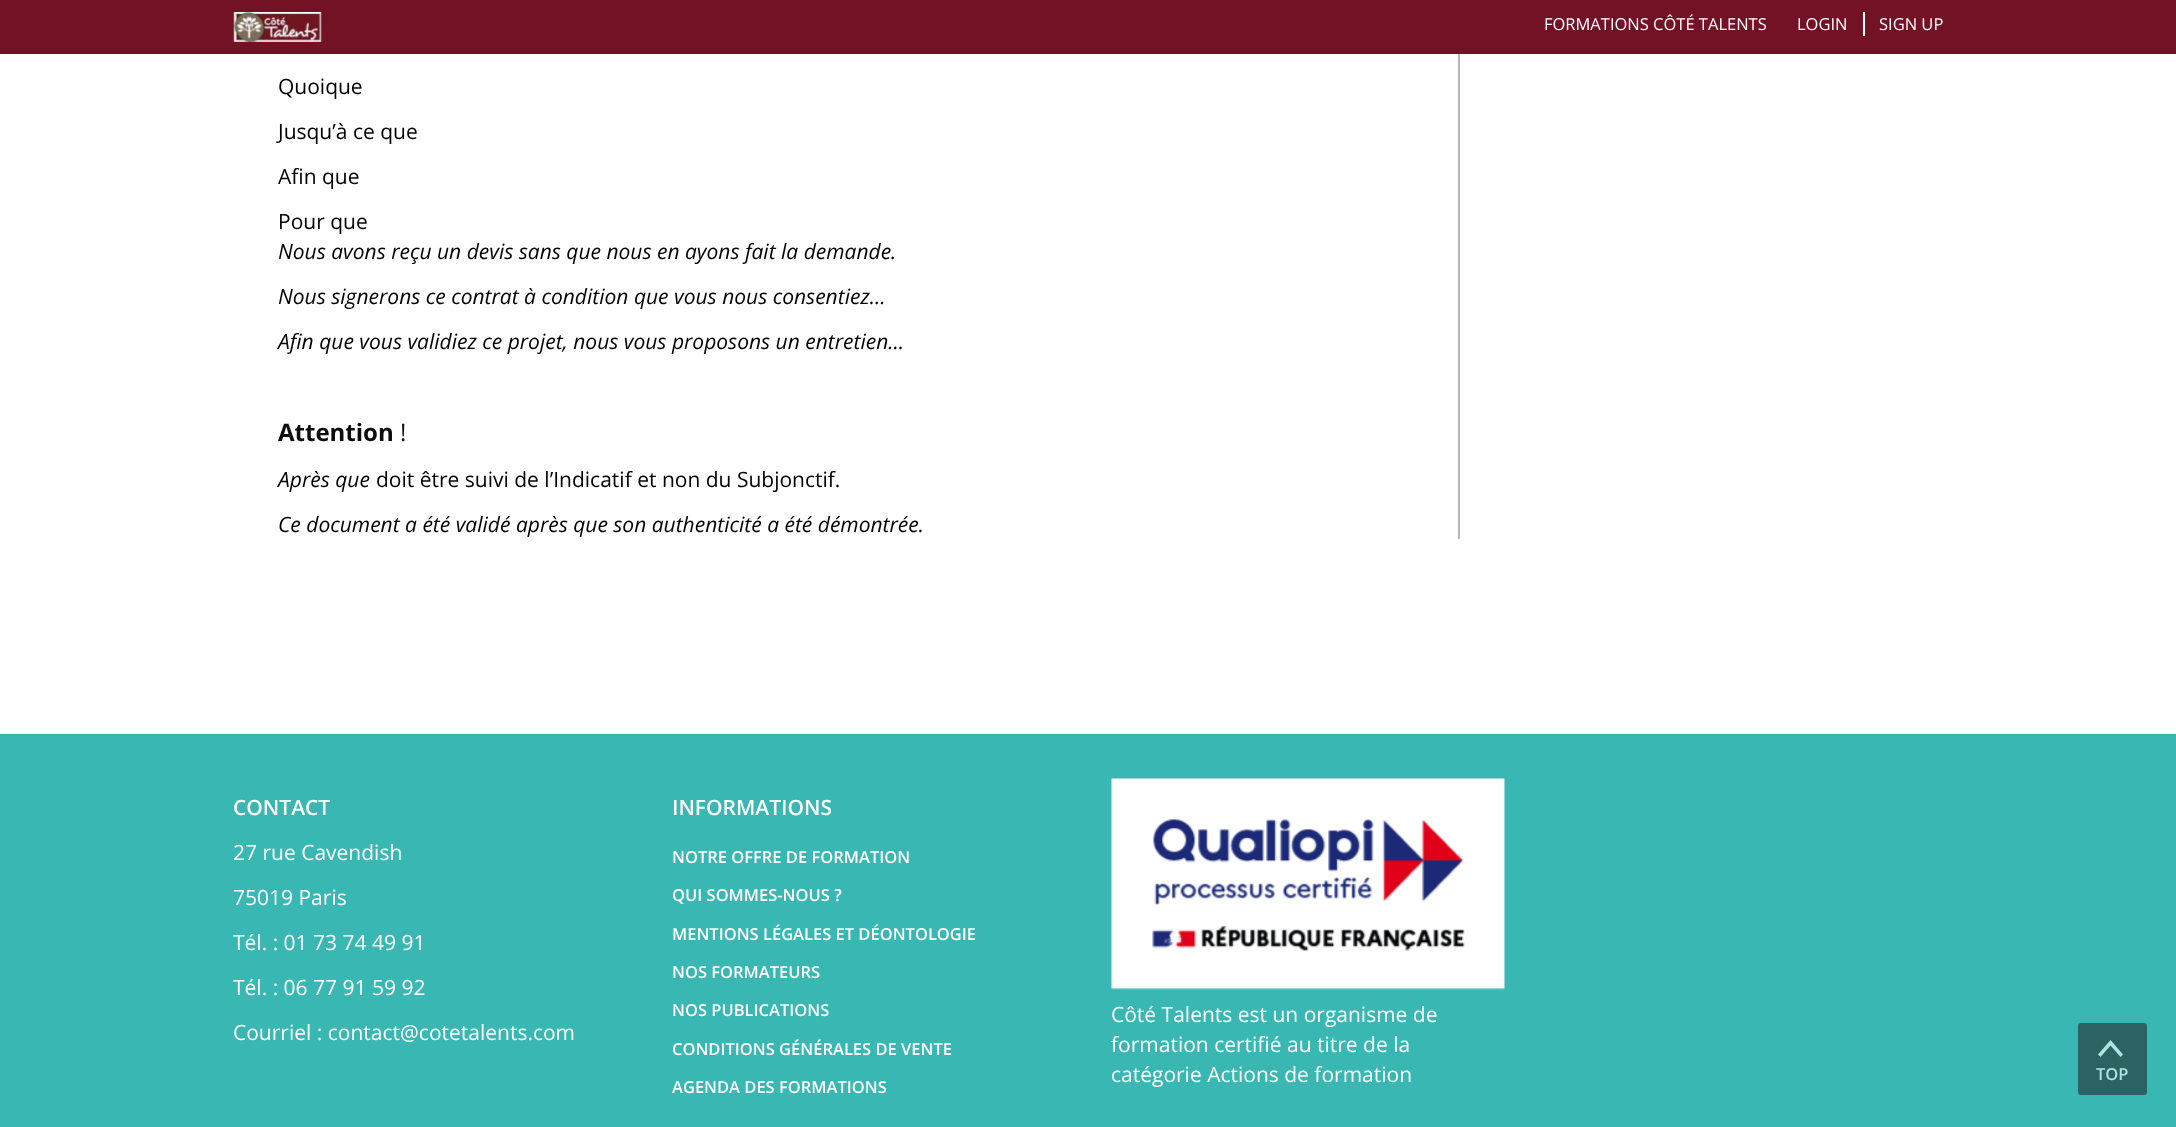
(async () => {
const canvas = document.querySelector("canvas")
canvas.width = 2176
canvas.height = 1127
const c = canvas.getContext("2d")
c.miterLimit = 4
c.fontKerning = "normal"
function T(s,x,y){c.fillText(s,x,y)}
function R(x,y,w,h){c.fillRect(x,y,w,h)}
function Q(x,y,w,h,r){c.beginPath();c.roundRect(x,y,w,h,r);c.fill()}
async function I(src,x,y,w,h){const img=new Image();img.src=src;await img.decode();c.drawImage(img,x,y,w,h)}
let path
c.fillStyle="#fff"
R(0,0,2176,1127)
c.fillStyle="#731224"
R(0,0,2176,54)
await I("1.png",233,12,89,30)
c.font="16.5px Open Sans"
c.fillStyle="#fff"
T("FORMATIONS CÔTÉ TALENTS",1544,30)
T("LOGIN",1797,30)
R(1863,12,2,24)
T("SIGN UP",1879,30)
c.fillStyle="#bcb7b7"
R(1458,54,2,485)
c.font="21px Open Sans"
c.fillStyle="#000"
T("Quoique",278,94)
T("Jusqu’à ce que",278,139)
T("Afin que",278,184)
T("Pour que",278,229)
c.font="italic 21px Open Sans"
T("Nous avons reçu un devis sans que nous en ayons fait la demande.",278,259)
T("Nous signerons ce contrat à condition que vous nous consentiez…",278,304)
T("Afin que vous validiez ce projet, nous vous proposons un entretien…",278,349)
c.font="bold 24px Open Sans"
c.fillStyle="#0c0c0c"
T("Attention",278,441)
c.font="24px Open Sans"
T("!",400,441)
c.font="italic 21px Open Sans"
c.fillStyle="#000"
T("Après que",278,487)
c.font="21px Open Sans"
T("doit être suivi de l’Indicatif et non du Subjonctif.",376,487)
c.font="italic 21px Open Sans"
T("Ce document a été validé après que son authenticité a été démontrée.",278,532)
c.fillStyle="#38b7b3"
R(0,734,2176,393)
c.font="600 21px Open Sans"
c.fillStyle="#fff"
T("CONTACT",233,815)
c.font="21px Open Sans"
T("27 rue Cavendish",233,860)
T("75019 Paris",233,905)
T("Tél. : 01 73 74 49 91",233,950)
T("Tél. : 06 77 91 59 92",233,995)
T("Courriel : contact@cotetalents.com",233,1040)
c.font="600 21px Open Sans"
T("INFORMATIONS",672,815)
c.font="600 16.5px Open Sans"
T("NOTRE OFFRE DE FORMATION",672,863)
T("QUI SOMMES-NOUS ?",672,901)
T("MENTIONS LÉGALES ET DÉONTOLOGIE",672,940)
T("NOS FORMATEURS",672,978)
T("NOS PUBLICATIONS",672,1016)
T("CONDITIONS GÉNÉRALES DE VENTE",672,1055)
T("AGENDA DES FORMATIONS",672,1093)
await I("2.png",1111,778,394,212)
c.font="21px Open Sans"
T("Côté Talents est un organisme de",1111,1022)
T("formation certifié au titre de la",1111,1052)
T("catégorie Actions de formation",1111,1082)
c.fillStyle="#2b6363"
Q(2078,1023,69,72,3)
c.fillStyle="#afe2e1"
path = new Path2D("M2100.5 1057l-2.5-2.5l12.5-14.5l12.5 14.5l-2.5 2.5l-10-11.5z")
c.fill(path)
c.font="600 16.5px Open Sans"
T("TOP",2096,1080)
})()
